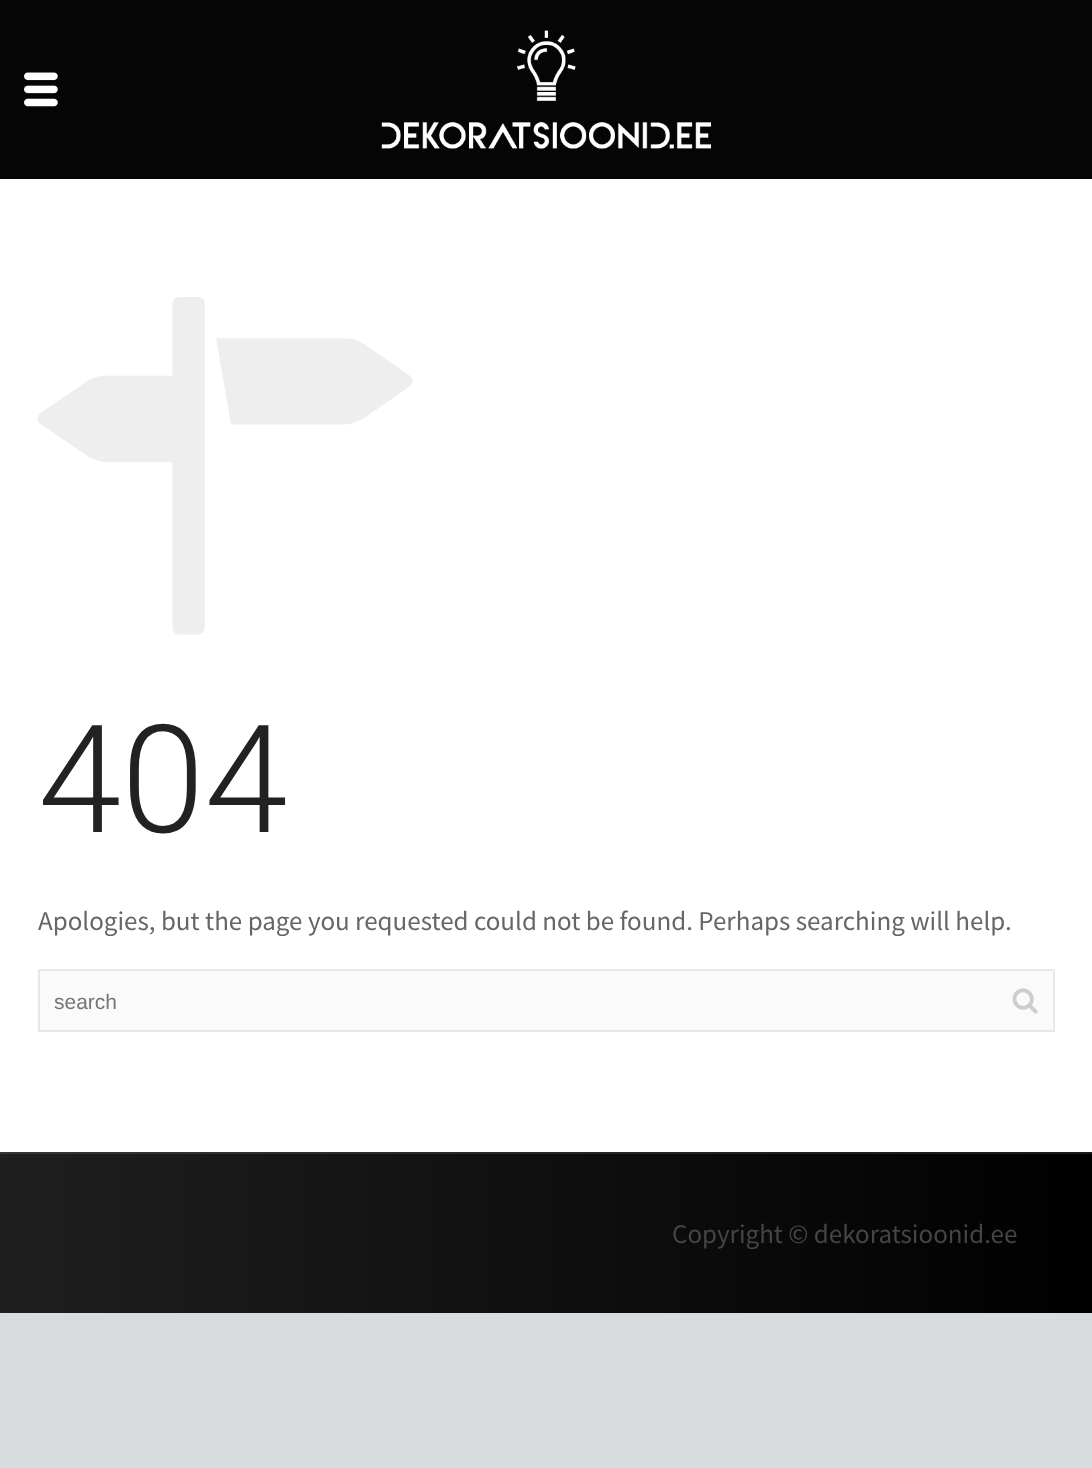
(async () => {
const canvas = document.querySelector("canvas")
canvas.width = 1092
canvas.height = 1468
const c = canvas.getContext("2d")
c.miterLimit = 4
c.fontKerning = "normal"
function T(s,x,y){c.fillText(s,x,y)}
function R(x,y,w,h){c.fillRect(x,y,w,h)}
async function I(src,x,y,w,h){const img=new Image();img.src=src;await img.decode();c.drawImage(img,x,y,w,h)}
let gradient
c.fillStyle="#d8dcde"
R(0,0,1092,1468)
c.fillStyle="#050505"
R(0,0,1092,179)
await I("1.png",24,72,34,35)
await I("2.png",381,30,330,119)
c.fillStyle="#fff"
R(0,179,1092,973)
await I("3.png",37,297,376,338)
c.font="300 150px Roboto"
c.fillStyle="#222"
T("404",38,832)
c.font="27px Source Sans Pro"
c.fillStyle="#666"
T("Apologies, but the page you requested could not be found. Perhaps searching will help.",38,930)
c.fillStyle="#fafafa"
c.beginPath()
c.rect(39,970,1015,61)
c.fill()
c.strokeStyle="#e8e8e8"
c.lineWidth=2
c.stroke()
c.font="21px Liberation Sans"
c.fillStyle="#757575"
T("search",54,1009)
await I("4.png",1012,988,26,26)
gradient = c.createLinearGradient(1092,1233,0,1233)
gradient.addColorStop(0,"#000")
gradient.addColorStop(1,"#1f1f1f")
c.fillStyle = gradient
R(0,1154,1092,159)
gradient = c.createLinearGradient(1092,1233,0,1233)
gradient.addColorStop(0,"#1a1a1a")
gradient.addColorStop(1,"#353535")
c.fillStyle = gradient
R(0,1152,1092,2)
c.font="27px Source Sans Pro"
c.fillStyle="#454545"
T("Copyright © dekoratsioonid.ee",672,1243)
})()
